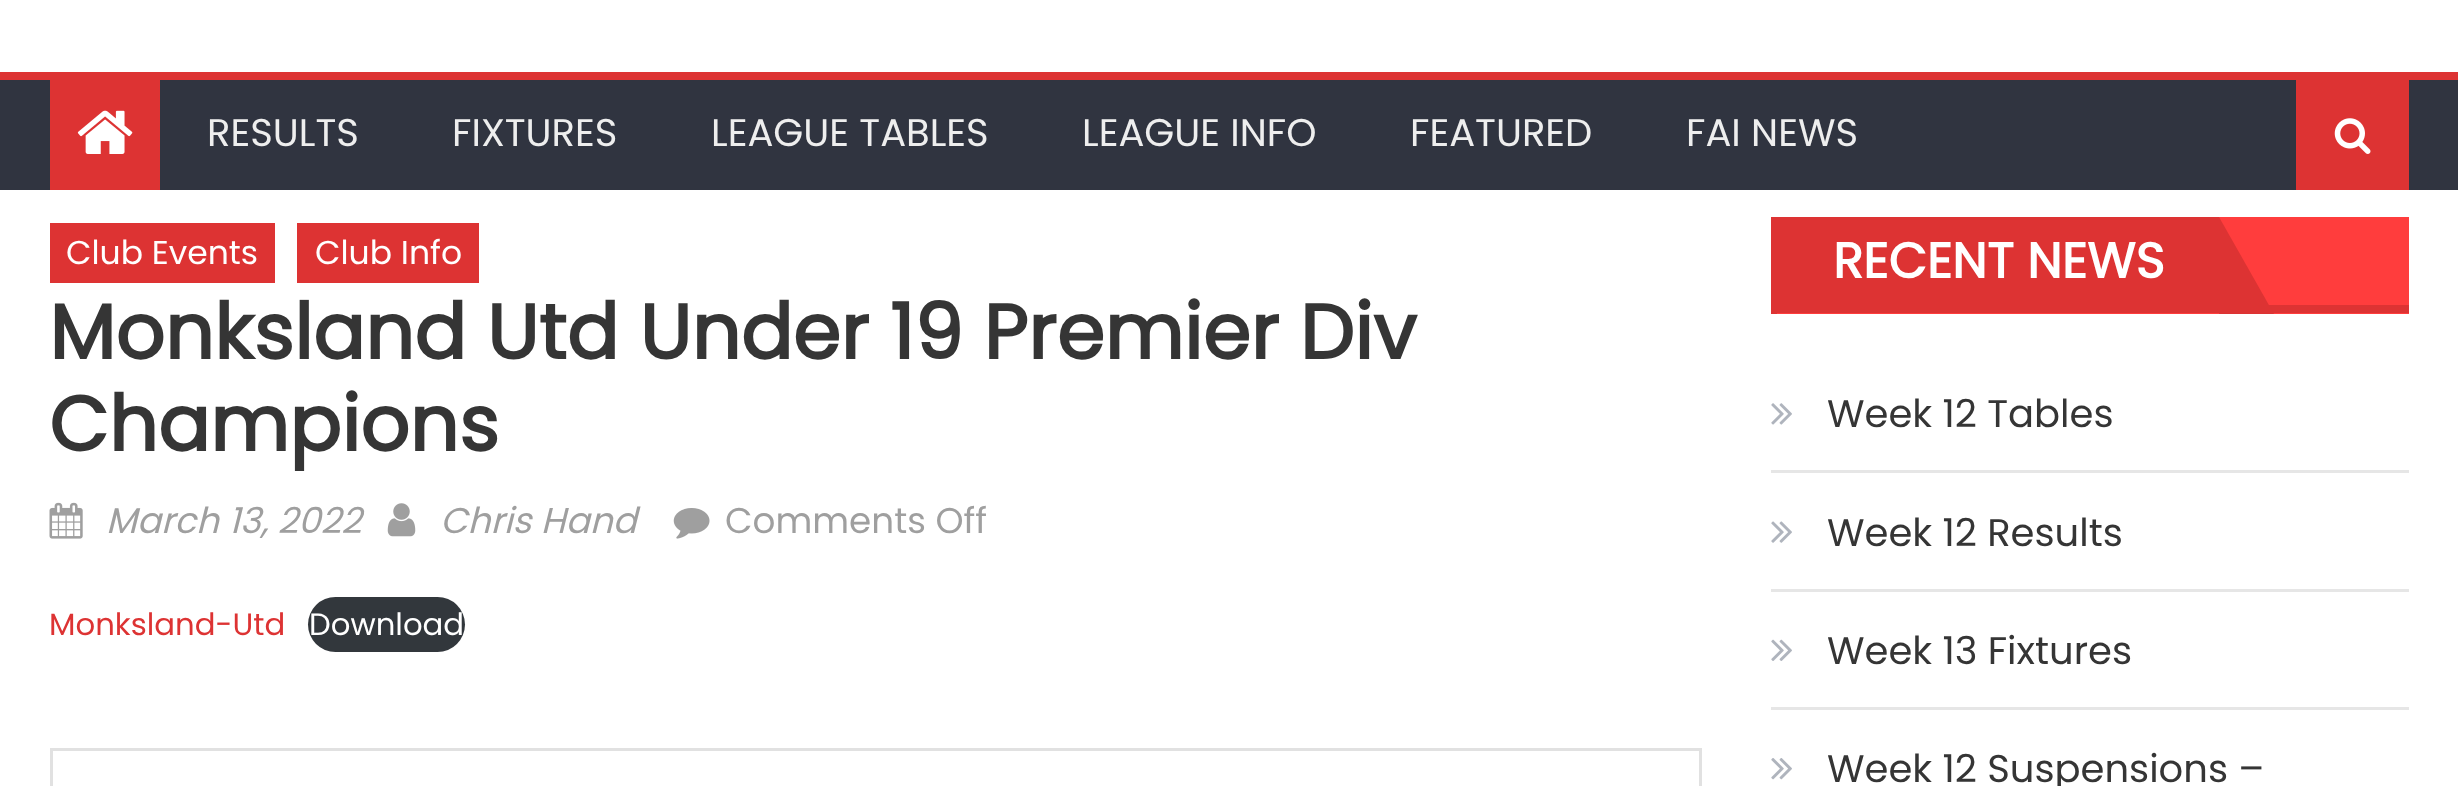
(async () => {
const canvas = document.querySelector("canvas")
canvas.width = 2458
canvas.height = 786
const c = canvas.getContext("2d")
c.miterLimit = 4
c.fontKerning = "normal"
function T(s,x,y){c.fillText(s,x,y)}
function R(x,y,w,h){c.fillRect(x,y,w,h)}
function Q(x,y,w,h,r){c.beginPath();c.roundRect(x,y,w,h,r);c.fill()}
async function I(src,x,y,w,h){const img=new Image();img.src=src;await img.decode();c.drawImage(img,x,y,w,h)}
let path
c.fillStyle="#fff"
R(0,0,2458,786)
c.fillStyle="#303440"
R(0,80,2458,110)
c.fillStyle="#d33"
R(0,72,2458,8)
R(50,80,110,110)
await I("1.png",77,110,56,44)
c.font="38.5px Poppins"
c.fillStyle="#eee"
T("RESULTS",207,146)
T("FIXTURES",452,146)
T("LEAGUE TABLES",711,146)
T("LEAGUE INFO",1082,146)
T("FEATURED",1410,146)
T("FAI NEWS",1686,146)
c.fillStyle="#d33"
R(2296,80,113,110)
await I("2.png",2334,118,37,36)
R(50,223,225,60)
c.font="33px Poppins"
c.fillStyle="#fff"
T("Club Events",66,264)
c.fillStyle="#d33"
R(297,223,182,60)
c.fillStyle="#fff"
T("Club Info",315,264)
c.font="bold 77px Poppins"
c.fillStyle="#353535"
T("Monksland Utd Under 19 Premier Div",49,359)
T("Champions",49,451)
await I("3.png",49,502,34,37)
c.font="italic 35.75px Poppins"
c.fillStyle="#9f9f9f"
T("March 13, 2022",106,533)
await I("4.png",387,503,29,34)
T("Chris Hand",440,533)
await I("5.png",673,508,37,31)
c.font="35.75px Poppins"
T("Comments Off",725,533)
c.font="30.75px Poppins"
c.fillStyle="#d33"
T("Monksland-Utd",49,635)
c.fillStyle="#32373c"
Q(308,597,157,55,27.5)
c.fillStyle="#fff"
T("Download",309,635)
c.strokeStyle="#e1e1e1"
c.lineWidth=3
c.strokeRect(51.5,749.5,1649,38)
c.fillStyle="#ff3d3d"
R(1777,217,632,97)
c.fillStyle="#d33"
R(1771,305,638,8)
R(1771,217,6,97)
R(1777,217,442,88)
c.font="bold 49.5px Poppins"
c.fillStyle="#fff"
T("RECENT NEWS",1833,278)
c.fillStyle="#d33"
path = new Path2D("M2274 314h-55v-97z")
c.fill(path)
c.fillStyle="#e6e6e6"
R(1771,470,638,3)
await I("6.png",1771,403,21,22)
c.font="38.5px Poppins"
c.fillStyle="#353535"
T("Week 12 Tables",1827,427)
c.fillStyle="#e6e6e6"
R(1771,589,638,3)
await I("7.png",1771,521,21,22)
c.fillStyle="#353535"
T("Week 12 Results",1827,546)
c.fillStyle="#e6e6e6"
R(1771,707,638,3)
await I("8.png",1771,639,21,22)
c.fillStyle="#353535"
T("Week 13 Fixtures",1827,664)
await I("9.png",1771,758,21,22)
T("Week 12 Suspensions –",1827,782)
})()
